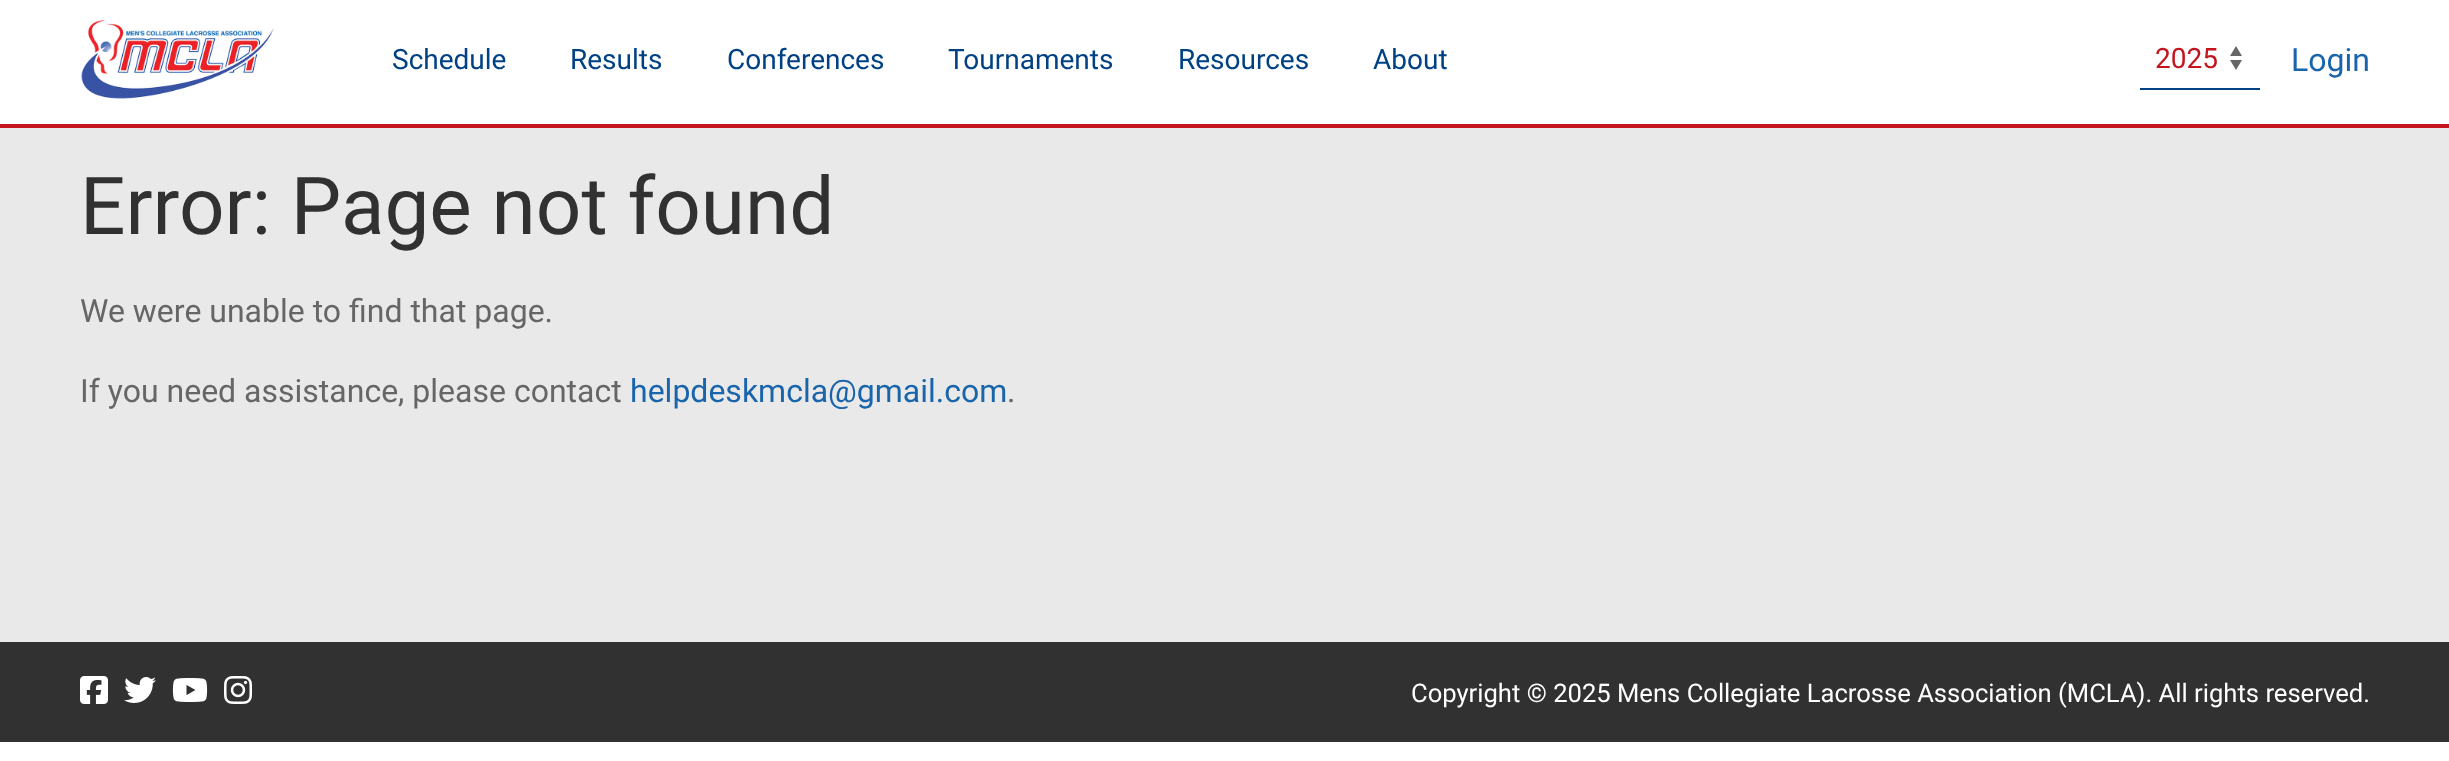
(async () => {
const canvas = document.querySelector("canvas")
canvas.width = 2449
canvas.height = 761
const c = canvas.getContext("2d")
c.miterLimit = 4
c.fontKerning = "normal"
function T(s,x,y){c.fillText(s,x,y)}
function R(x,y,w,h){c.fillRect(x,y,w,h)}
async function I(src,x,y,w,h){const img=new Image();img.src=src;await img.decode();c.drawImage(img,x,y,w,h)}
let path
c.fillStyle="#fff"
R(0,0,2449,761)
c.fillStyle="#c2151c"
R(0,124,2449,4)
await I("1.png",81,20,193,79)
c.font="28px Roboto"
c.fillStyle="#004185"
T("Schedule",392,69)
T("Results",570,69)
T("Conferences",727,69)
T("Tournaments",948,69)
T("Resources",1178,69)
T("About",1373,69)
c.fillStyle="#666"
path = new Path2D("M2236 46l-6 10h12zm0 24l-6-10h12z")
c.fill(path)
c.fillStyle="#004185"
R(2140,88,120,2)
c.fillStyle="#c2151c"
T("2025",2155,68)
c.font="32px Roboto"
c.fillStyle="#1965ab"
T("Login",2291,71)
c.fillStyle="#e9e9e9"
R(0,128,2449,514)
c.font="80px Roboto"
c.fillStyle="#313131"
T("Error: Page not found",80,234)
c.font="32px Roboto"
c.fillStyle="#666"
T("We were unable to find that page.",80,322)
T("If you need assistance, please contact",80,402)
c.fillStyle="#1965ab"
T("helpdeskmcla@gmail.com",630,402)
c.fillStyle="#666"
T(".",1007,402)
c.fillStyle="#313131"
R(0,642,2449,100)
await I("2.png",80,676,28,28)
await I("3.png",124,677,32,26)
await I("4.png",172,678,36,24)
await I("5.png",224,676,28,28)
c.font="25.6px Roboto"
c.fillStyle="#fff"
T("Copyright © 2025 Mens Collegiate Lacrosse Association (MCLA). All rights reserved.",1411,702)
})()
